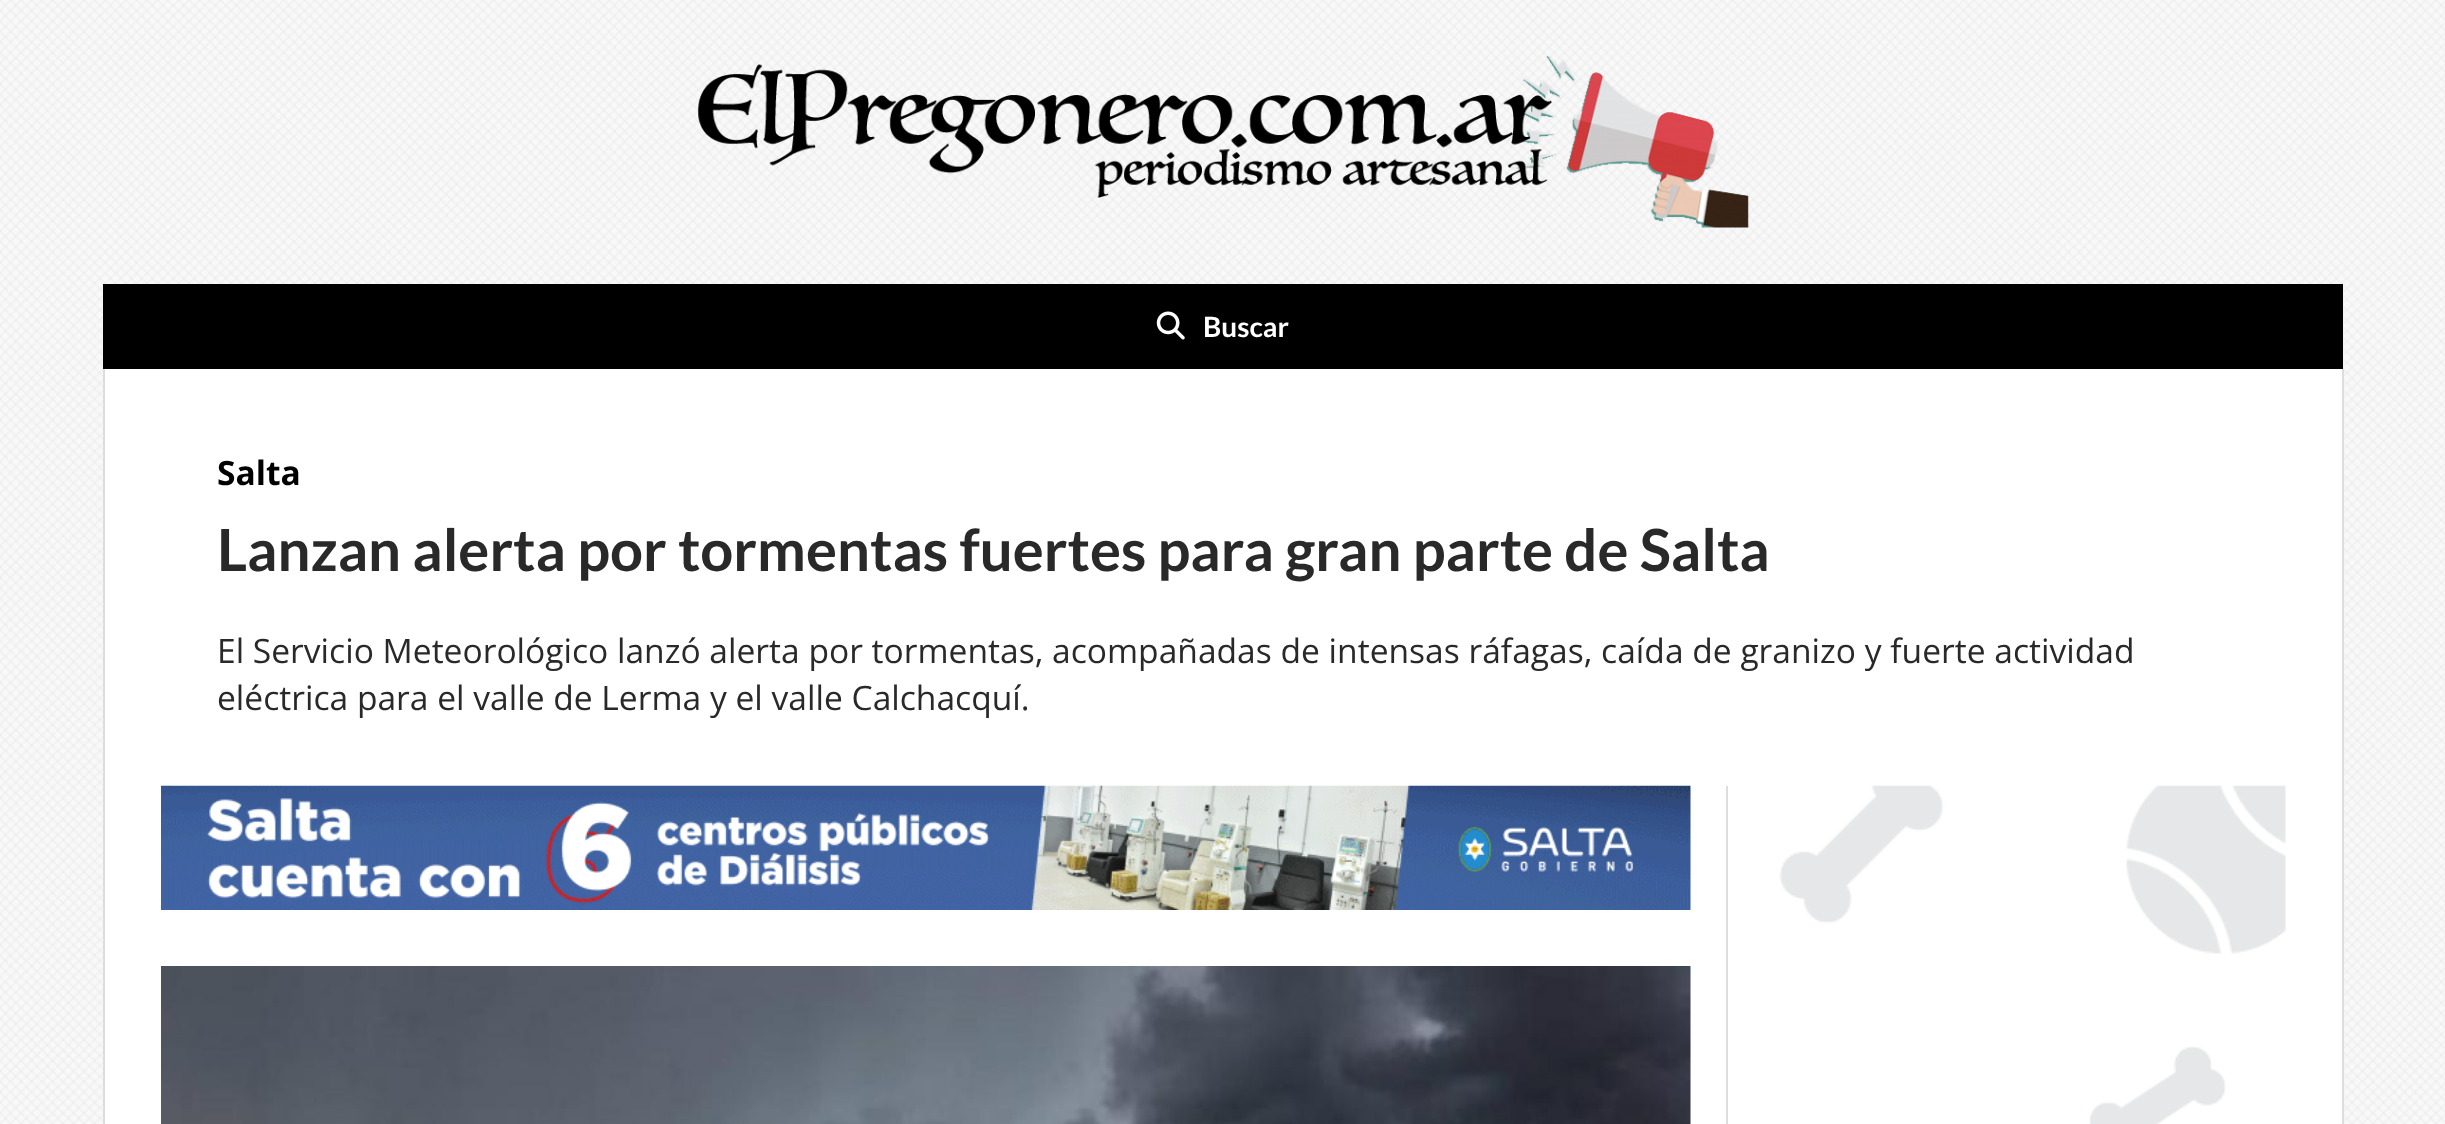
(async () => {
const canvas = document.querySelector("canvas")
canvas.width = 2445
canvas.height = 1124
const c = canvas.getContext("2d")
c.miterLimit = 4
c.fontKerning = "normal"
function T(s,x,y){c.fillText(s,x,y)}
function R(x,y,w,h){c.fillRect(x,y,w,h)}
async function I(src,x,y,w,h){const img=new Image();img.src=src;await img.decode();c.drawImage(img,x,y,w,h)}
c.fillStyle="#fff"
R(0,0,2445,1124)
await I("1.png",0,0,2445,1124)
await I("2.png",698,56,1051,172)
c.fillStyle="#000"
R(103,284,2240,85)
await I("3.png",1156,311,29,29)
c.font="bold 28px Lato"
c.fillStyle="#fff"
T("Buscar",1203,337)
R(105,369,2237,755)
c.fillStyle="#ddd"
R(2342,369,2,755)
R(103,369,2,755)
c.font="bold 33.6px Open Sans"
c.fillStyle="#000"
T("Salta",217,485)
c.font="bold 58.05px Lato"
c.fillStyle="#292929"
T("Lanzan alerta por tormentas fuertes para gran parte de Salta",217,571)
c.font="33.6px Open Sans"
T("El Servicio Meteorológico lanzó alerta por tormentas, acompañadas de intensas ráfagas, caída de granizo y fuerte actividad",217,663)
T("eléctrica para el valle de Lerma y el valle Calchacquí.",217,710)
await I("4.png",161,785,1530,125)
await I("5.png",161,966,1530,158)
c.fillStyle="#ddd"
R(1726,786,2,338)
await I("6.png",1779,785,507,339)
})()
